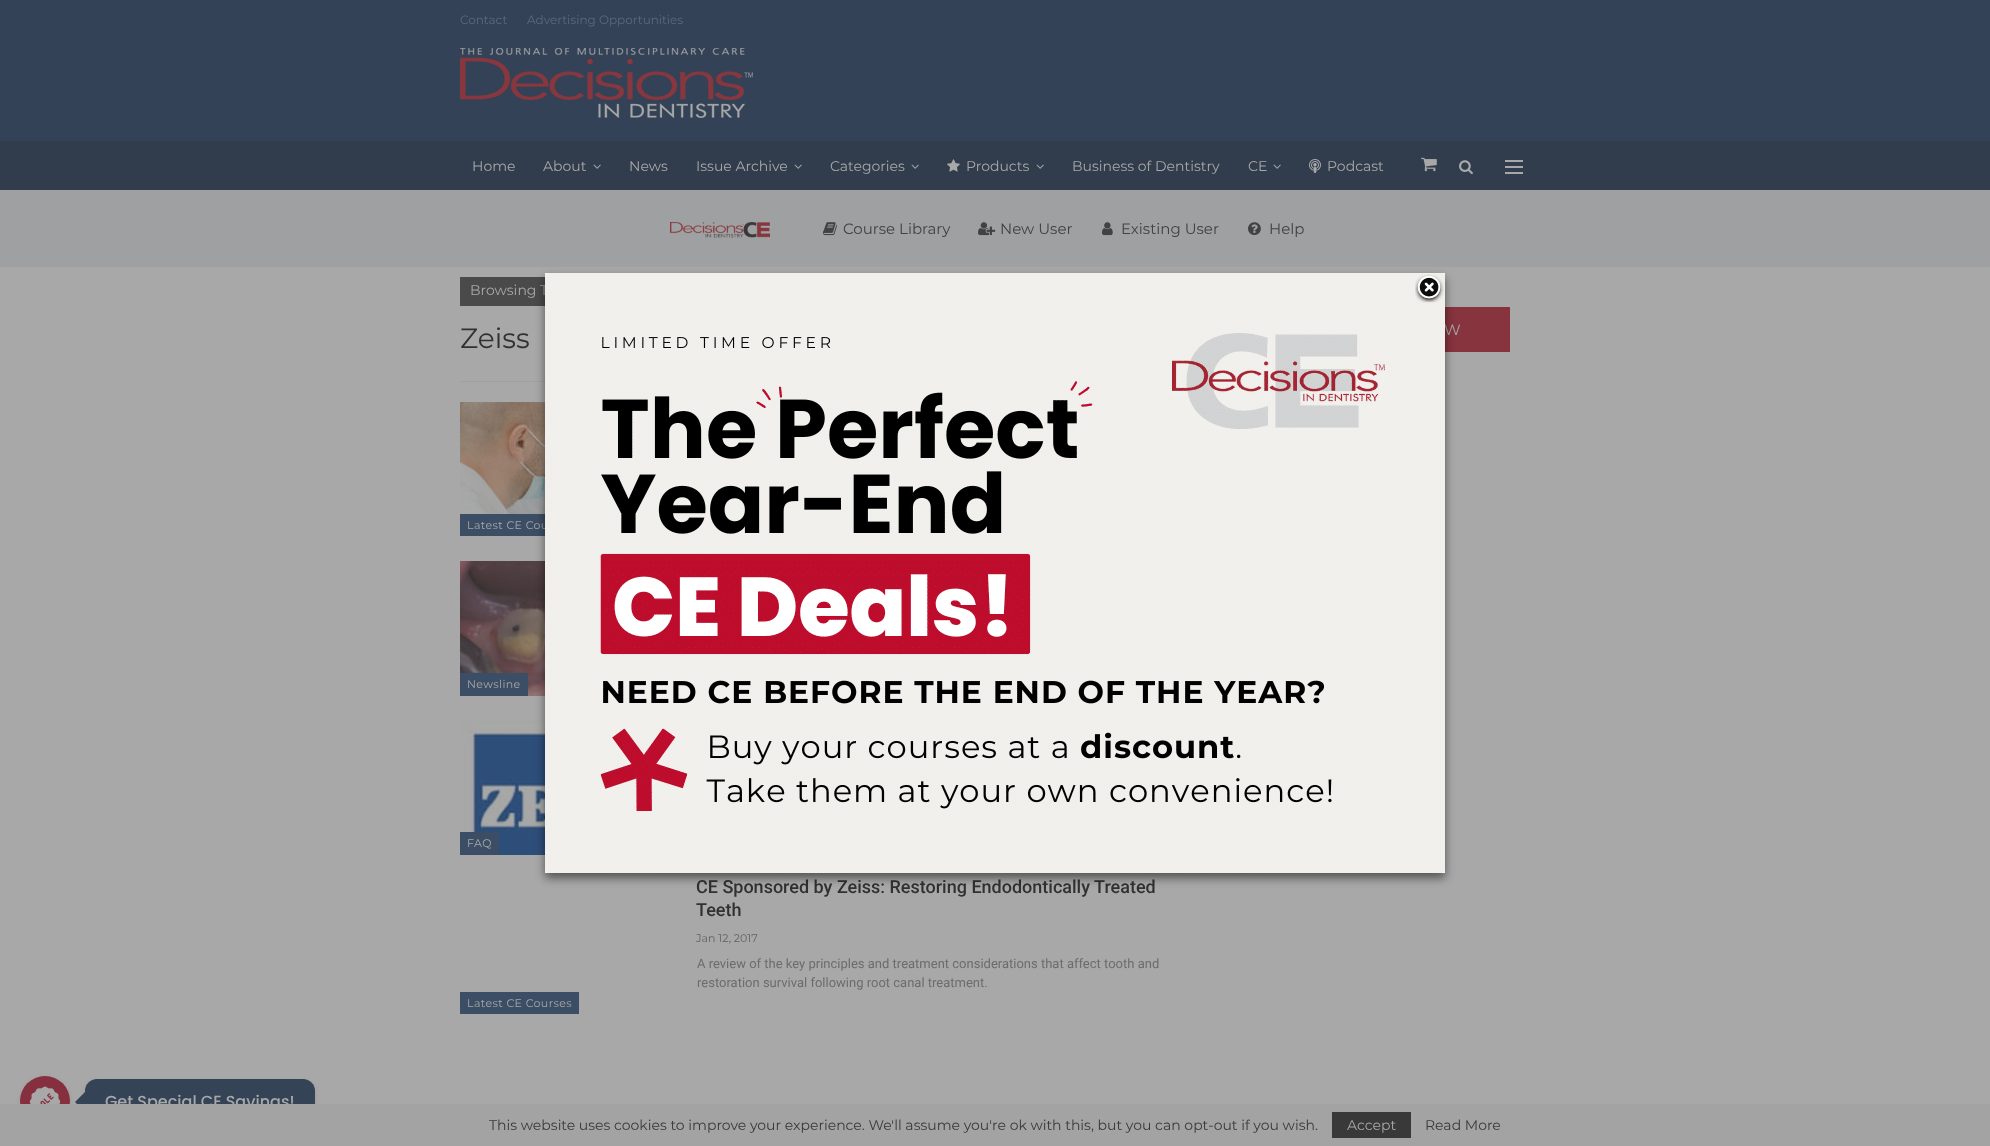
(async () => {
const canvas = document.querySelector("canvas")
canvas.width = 1990
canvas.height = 1146
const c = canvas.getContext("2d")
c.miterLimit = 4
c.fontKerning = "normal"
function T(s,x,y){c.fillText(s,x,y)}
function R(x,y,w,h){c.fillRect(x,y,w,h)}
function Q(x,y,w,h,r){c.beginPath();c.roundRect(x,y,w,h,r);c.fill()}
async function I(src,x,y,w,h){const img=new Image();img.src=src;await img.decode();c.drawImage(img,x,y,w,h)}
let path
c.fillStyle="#a8a8a8"
R(0,0,1990,1146)
c.fillStyle="#334256"
R(0,0,1990,141)
c.font="100 12px Montserrat"
c.fillStyle="#5c697a"
T("Contact",460,24)
T("Advertising Opportunities",527,24)
await I("1.png",460,48,293,70)
c.fillStyle="#313d4d"
R(0,141,1990,49)
c.font="100 14px Montserrat"
c.fillStyle="#a8a8a8"
T("Home",472,171)
T("About",543,171)
await I("2.png",593,164,8,5)
T("News",629,171)
T("Issue Archive",696,171)
await I("2.png",794,164,8,5)
T("Categories",830,171)
await I("2.png",911,164,8,5)
await I("3.png",947,159,13,13)
T("Products",966,171)
await I("2.png",1036,164,8,5)
T("Business of Dentistry",1072,171)
T("CE",1248,171)
await I("2.png",1273,164,8,5)
await I("4.png",1309,159,12,14)
T("Podcast",1327,171)
await I("5.png",1421,157,16,15)
await I("6.png",1459,160,14,15)
R(1505,166,18,2)
R(1505,160,18,2)
R(1505,172,18,2)
c.fillStyle="#9fa0a1"
R(0,190,1990,77)
await I("7.png",670,222,100,16)
await I("8.png",823,222,14,14)
c.font="100 15px Montserrat"
c.fillStyle="#424242"
T("Course Library",843,234)
await I("9.png",978,222,18,14)
T("New User",1000,234)
await I("10.png",1102,222,11,14)
T("Existing User",1121,234)
await I("11.png",1248,222,13,14)
T("Help",1269,234)
c.fillStyle="#a0a0a0"
R(460,381,85,1)
c.fillStyle="#4a4a4a"
R(460,277,85,29)
c.font="100 14px Montserrat"
c.fillStyle="#a8a8a8"
T("Browsing T",470,295)
c.font="100 28px Montserrat"
c.fillStyle="#313131"
T("Zeiss",460,348)
await I("12.png",460,402,85,112)
c.fillStyle="#3c4e65"
R(460,514,85,22)
c.letterSpacing="0.4px"
c.font="100 11px Montserrat"
c.fillStyle="#a8a8a8"
T("Latest CE Cou",467,529)
await I("13.png",460,561,85,135)
c.fillStyle="#3c4e65"
R(460,673,68,23)
c.fillStyle="#a8a8a8"
T("Newsline",467,688)
await I("14.png",460,721,85,134)
c.fillStyle="#3c4e65"
R(460,832,39,23)
c.fillStyle="#a8a8a8"
T("FAQ",467,847)
c.letterSpacing="0px"
c.font="500 18px Roboto"
c.fillStyle="#313131"
T("CE Sponsored by Zeiss: Restoring Endodontically Treated",696,893)
T("Teeth",696,916)
c.font="100 11px Montserrat"
c.fillStyle="#616161"
T("Jan 12, 2017",696,942)
c.font="13px Roboto"
c.fillStyle="#6c6c6c"
T("A review of the key principles and treatment considerations that affect tooth and",697,968)
T("restoration survival following root canal treatment.",697,987)
c.fillStyle="#3c4e65"
R(460,992,119,22)
c.letterSpacing="0.4px"
c.font="100 11px Montserrat"
c.fillStyle="#a8a8a8"
T("Latest CE Courses",467,1007)
c.fillStyle="#87343f"
R(1445,307,65,45)
c.letterSpacing="0px"
c.font="100 15px Montserrat"
c.fillStyle="#a8a8a8"
T("W",1444,335)
c.fillStyle="#00000080"
c.filter="blur(5px)"
c.beginPath()
c.rect(545,278,900,600)
c.fill()
c.filter="none"
c.fillStyle="#f7f7f7"
R(545,273,900,600)
await I("15.png",545,273,900,600)
await I("16.png",1415,274,29,29)
c.fillStyle="#42424226"
c.filter="blur(2.5px)"
c.beginPath()
c.roundRect(85,1081,230,46,12)
c.fill()
c.filter="none"
c.fillStyle="#354356"
path = new Path2D("M85 1092v20l-10-10z")
c.fill(path)
c.fillStyle="#42424226"
c.filter="blur(2.5px)"
c.beginPath()
c.roundRect(20,1078,50,50,25)
c.fill()
c.filter="none"
c.fillStyle="#862f3f"
c.beginPath()
c.arc(45,1101,25,0,7)
c.fill()
await I("17.png",29,1086,32,18)
c.fillStyle="#354356"
Q(85,1079,230,46,12)
c.font="500 16px Poppins"
c.fillStyle="#a8a8a8"
T("Get Special CE Savings!",105,1107)
c.fillStyle="#a3a3a3"
R(0,1104,1990,42)
c.font="100 14px Montserrat"
c.fillStyle="#393939"
T("This website uses cookies to improve your experience. We'll assume you're ok with this, but you can opt-out if you wish.",489,1130)
R(1332,1112,79,26)
c.fillStyle="#a8a8a8"
T("Accept",1347,1130)
c.fillStyle="#393939"
T("Read More",1425,1130)
})()
